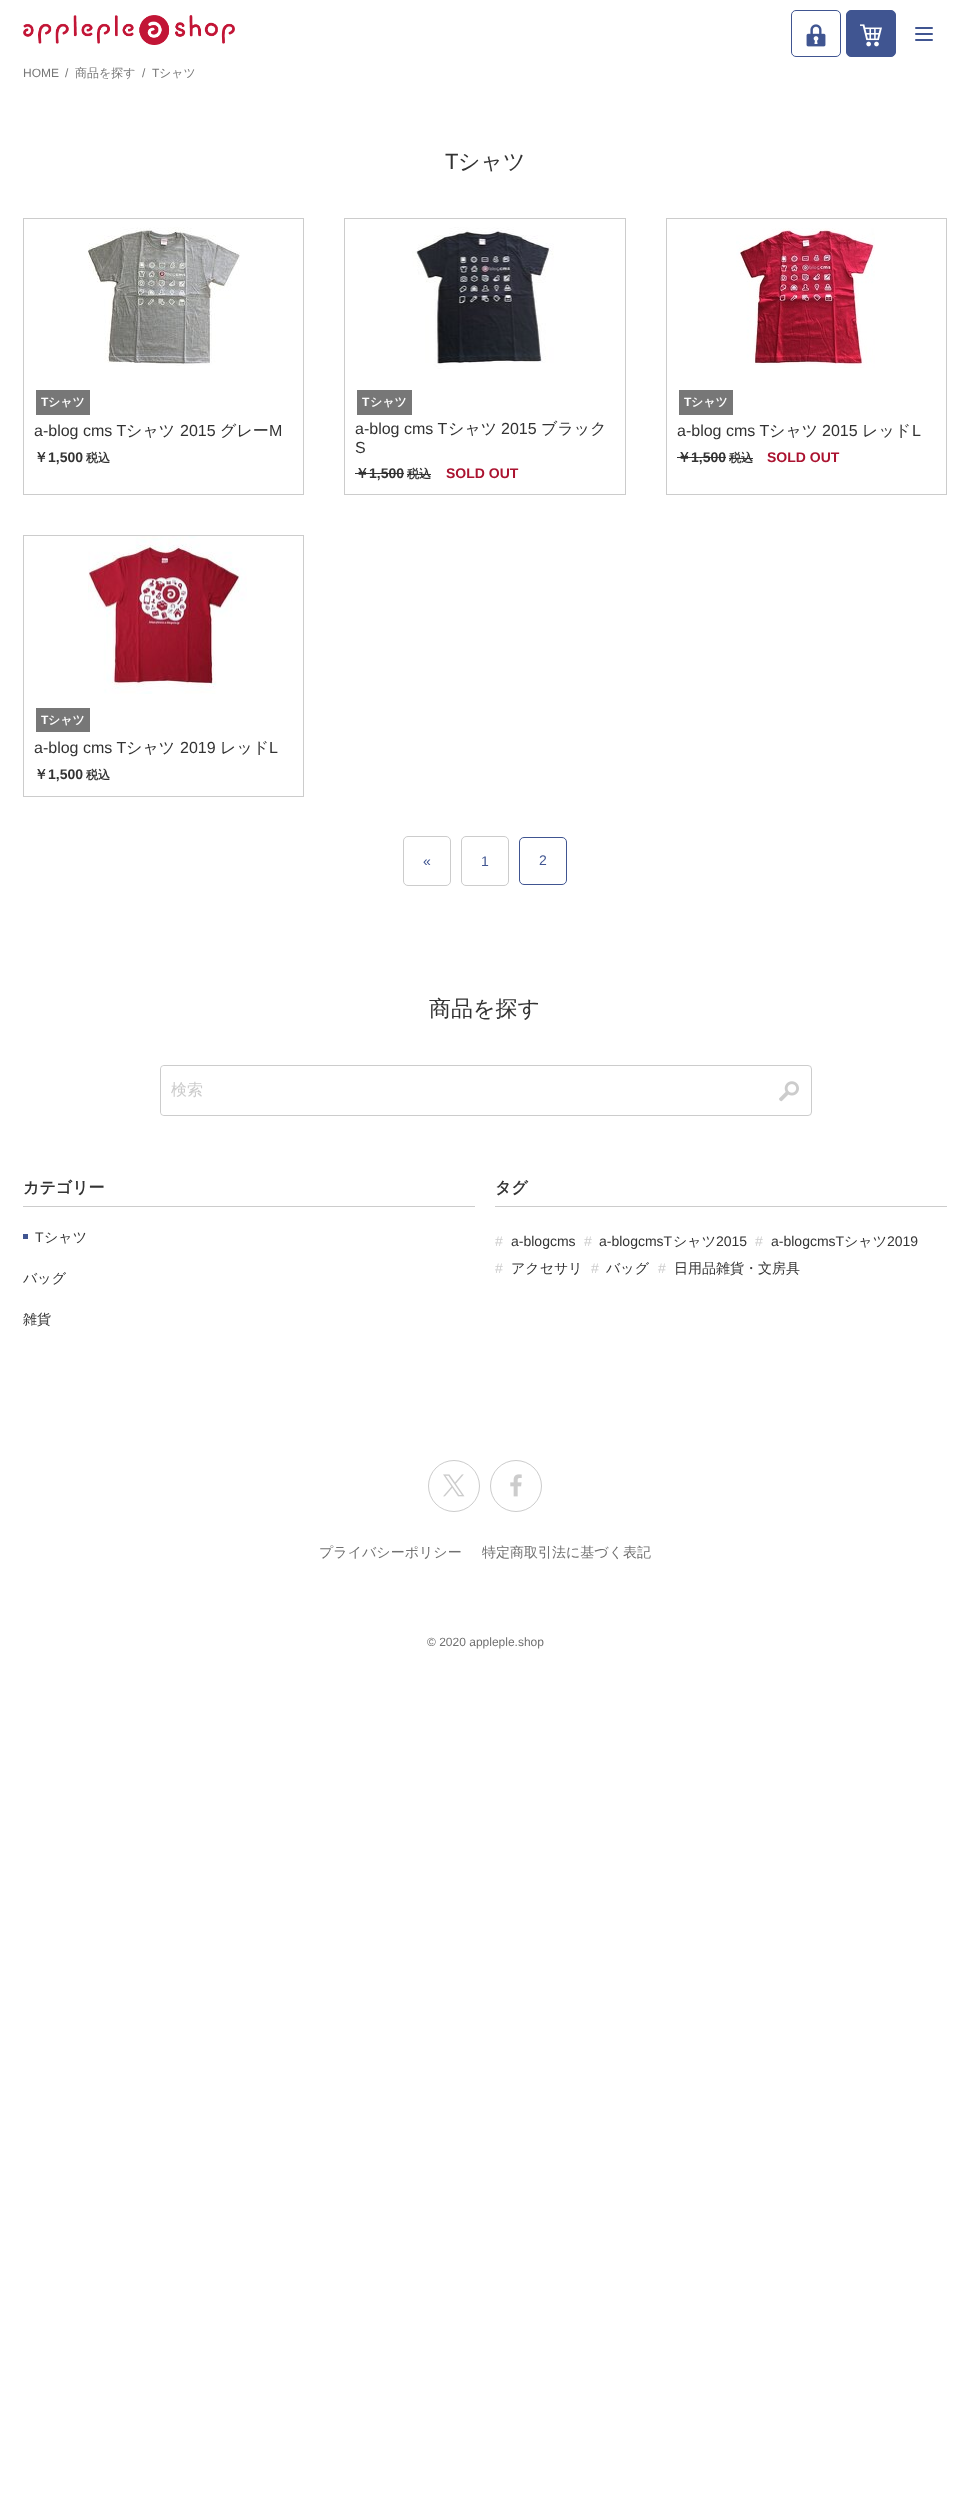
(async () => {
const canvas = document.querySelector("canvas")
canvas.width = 970
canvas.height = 2502
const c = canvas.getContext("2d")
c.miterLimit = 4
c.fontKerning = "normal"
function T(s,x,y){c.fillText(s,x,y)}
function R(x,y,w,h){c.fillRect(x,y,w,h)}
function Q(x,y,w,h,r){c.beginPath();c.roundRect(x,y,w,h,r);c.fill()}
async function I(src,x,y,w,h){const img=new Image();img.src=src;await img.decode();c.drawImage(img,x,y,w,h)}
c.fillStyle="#fff"
R(0,0,970,2502)
await I("1.png",23,15,212,30)
c.beginPath()
c.roundRect(791.5,10.5,49,46,4.5)
c.strokeStyle="#405591"
c.stroke()
await I("2.png",806,24,20,23)
c.fillStyle="#405591"
c.beginPath()
c.roundRect(846.5,10.5,49,46,4.5)
c.fill()
c.stroke()
await I("3.png",860,24,22,23)
Q(915,33,18,2,1)
Q(915,27,18,2,1)
Q(915,39,18,2,1)
c.font="12px Liberation Sans"
c.fillStyle="#777"
T("HOME",23,77)
T("/",65,77)
c.font="500 12px WenQuanYi Zen Hei"
T("商品を探す",75,77)
c.font="12px Liberation Sans"
T("/",142,77)
T("T",152,77)
c.font="500 12px WenQuanYi Zen Hei"
T("シャツ",159,77)
c.font="22px Liberation Sans"
c.fillStyle="#333"
T("T",445,169)
c.font="500 22px WenQuanYi Zen Hei"
T("シャツ",458,169)
c.strokeStyle="#ccc"
c.strokeRect(23.5,218.5,280,276)
await I("4.png",88,227,152,139)
c.fillStyle="#777"
R(36,390,54,25)
c.font="bold 12px Liberation Sans"
c.fillStyle="#fff"
T("T",41,406)
c.font="bold 12px WenQuanYi Zen Hei"
T("シャツ",48,406)
c.font="16px Liberation Sans"
c.fillStyle="#333"
T("a-blog cms T",34,436)
c.font="500 16px WenQuanYi Zen Hei"
T("シャツ",126,436)
c.font="16px Liberation Sans"
T("2015",180,436)
c.font="500 16px WenQuanYi Zen Hei"
T("グレー",220,436)
c.font="16px Liberation Sans"
T("M",269,436)
c.font="bold 14px WenQuanYi Zen Hei"
T("￥",34,462)
c.font="bold 14px Liberation Sans"
T("1,500",48,462)
c.font="bold 12px WenQuanYi Zen Hei"
T("税込",86,462)
c.strokeRect(344.5,218.5,281,276)
await I("5.png",412,227,142,142)
c.fillStyle="#777"
R(357,390,55,25)
c.font="bold 12px Liberation Sans"
c.fillStyle="#fff"
T("T",362,406)
c.font="bold 12px WenQuanYi Zen Hei"
T("シャツ",370,406)
c.font="16px Liberation Sans"
c.fillStyle="#333"
T("a-blog cms T",355,434)
c.font="500 16px WenQuanYi Zen Hei"
T("シャツ",448,434)
c.font="16px Liberation Sans"
T("2015",501,434)
c.font="500 16px WenQuanYi Zen Hei"
T("ブラック",541,434)
c.font="16px Liberation Sans"
T("S",355,453)
c.font="bold 14px WenQuanYi Zen Hei"
T("￥",355,478)
R(355,473,49,1)
c.font="bold 14px Liberation Sans"
T("1,500",369,478)
c.font="bold 12px WenQuanYi Zen Hei"
T("税込",407,478)
R(407,474,24,1)
c.font="bold 14px Liberation Sans"
c.fillStyle="#ab1330"
T("SOLD OUT",446,478)
c.strokeRect(666.5,218.5,280,276)
await I("6.png",736,228,139,140)
c.fillStyle="#777"
R(679,390,54,25)
c.font="bold 12px Liberation Sans"
c.fillStyle="#fff"
T("T",684,406)
c.font="bold 12px WenQuanYi Zen Hei"
T("シャツ",691,406)
c.font="16px Liberation Sans"
c.fillStyle="#333"
T("a-blog cms T",677,436)
c.font="500 16px WenQuanYi Zen Hei"
T("シャツ",769,436)
c.font="16px Liberation Sans"
T("2015",822,436)
c.font="500 16px WenQuanYi Zen Hei"
T("レッド",862,436)
c.font="16px Liberation Sans"
T("L",912,436)
c.font="bold 14px WenQuanYi Zen Hei"
T("￥",677,462)
R(677,457,49,1)
c.font="bold 14px Liberation Sans"
T("1,500",691,462)
c.font="bold 12px WenQuanYi Zen Hei"
T("税込",729,462)
R(729,458,24,1)
c.font="bold 14px Liberation Sans"
c.fillStyle="#ab1330"
T("SOLD OUT",767,462)
c.strokeRect(23.5,535.5,280,261)
await I("7.png",88,536,159,158)
c.fillStyle="#777"
R(36,708,54,24)
c.font="bold 12px Liberation Sans"
c.fillStyle="#fff"
T("T",41,724)
c.font="bold 12px WenQuanYi Zen Hei"
T("シャツ",48,724)
c.font="16px Liberation Sans"
c.fillStyle="#333"
T("a-blog cms T",34,753)
c.font="500 16px WenQuanYi Zen Hei"
T("シャツ",126,753)
c.font="16px Liberation Sans"
T("2019",180,753)
c.font="500 16px WenQuanYi Zen Hei"
T("レッド",220,753)
c.font="16px Liberation Sans"
T("L",269,753)
c.font="bold 14px WenQuanYi Zen Hei"
T("￥",34,779)
c.font="bold 14px Liberation Sans"
T("1,500",48,779)
c.font="bold 12px WenQuanYi Zen Hei"
T("税込",86,779)
c.beginPath()
c.roundRect(403.5,836.5,47,49,4.5)
c.stroke()
c.font="14px Liberation Sans"
c.fillStyle="#405591"
T("«",423,866)
c.beginPath()
c.roundRect(461.5,836.5,47,49,4.5)
c.stroke()
T("1",481,866)
c.beginPath()
c.roundRect(519.5,837.5,47,47,4.5)
c.strokeStyle="#405591"
c.stroke()
T("2",539,865)
c.font="500 22px WenQuanYi Zen Hei"
c.fillStyle="#333"
T("商品を探す",429,1016)
c.beginPath()
c.roundRect(160.5,1065.5,651,50,3.5)
c.strokeStyle="#ccc"
c.stroke()
c.fillStyle="#fff"
Q(161,1066,610,49,4)
c.font="500 16px WenQuanYi Zen Hei"
c.fillStyle="#ccc"
T("検索",171,1095)
await I("8.png",779,1081,20,21)
R(23,1206,452,1)
c.font="bold 16px WenQuanYi Zen Hei"
c.fillStyle="#333"
T("カテゴリー",23,1193)
c.fillStyle="#405591"
R(23,1234,5,5)
c.font="14px Liberation Sans"
c.fillStyle="#333"
T("T",35,1242)
c.font="500 14px WenQuanYi Zen Hei"
T("シャツ",44,1242)
T("バッグ",23,1283)
T("雑貨",23,1324)
c.fillStyle="#ccc"
R(495,1206,452,1)
c.font="bold 16px WenQuanYi Zen Hei"
c.fillStyle="#333"
T("タグ",495,1193)
c.font="14px Liberation Sans"
c.fillStyle="#ccc"
T("#",495,1246)
c.fillStyle="#333"
T("a-blogcms",511,1246)
c.fillStyle="#ccc"
T("#",584,1246)
c.fillStyle="#333"
T("a-blogcmsT",599,1246)
c.font="500 14px WenQuanYi Zen Hei"
T("シャツ",673,1246)
c.font="14px Liberation Sans"
T("2015",716,1246)
c.fillStyle="#ccc"
T("#",755,1246)
c.fillStyle="#333"
T("a-blogcmsT",771,1246)
c.font="500 14px WenQuanYi Zen Hei"
T("シャツ",844,1246)
c.font="14px Liberation Sans"
T("2019",887,1246)
c.fillStyle="#ccc"
T("#",495,1273)
c.font="500 14px WenQuanYi Zen Hei"
c.fillStyle="#333"
T("アクセサリ",511,1273)
c.font="14px Liberation Sans"
c.fillStyle="#ccc"
T("#",591,1273)
c.font="500 14px WenQuanYi Zen Hei"
c.fillStyle="#333"
T("バッグ",606,1273)
c.font="14px Liberation Sans"
c.fillStyle="#ccc"
T("#",658,1273)
c.font="500 14px WenQuanYi Zen Hei"
c.fillStyle="#333"
T("日用品雑貨・文房具",674,1273)
c.beginPath()
c.arc(454,1486,25.5,0,7)
c.stroke()
await I("9.png",443,1474,22,23)
c.beginPath()
c.arc(516,1486,25.5,0,7)
c.stroke()
await I("10.png",510,1474,12,23)
c.fillStyle="#707070"
T("プライバシーポリシー",319,1557)
T("特定商取引法に基づく表記",482,1557)
c.font="12px Liberation Sans"
T("©︎ 2020 appleple.shop",427,1646)
})()
